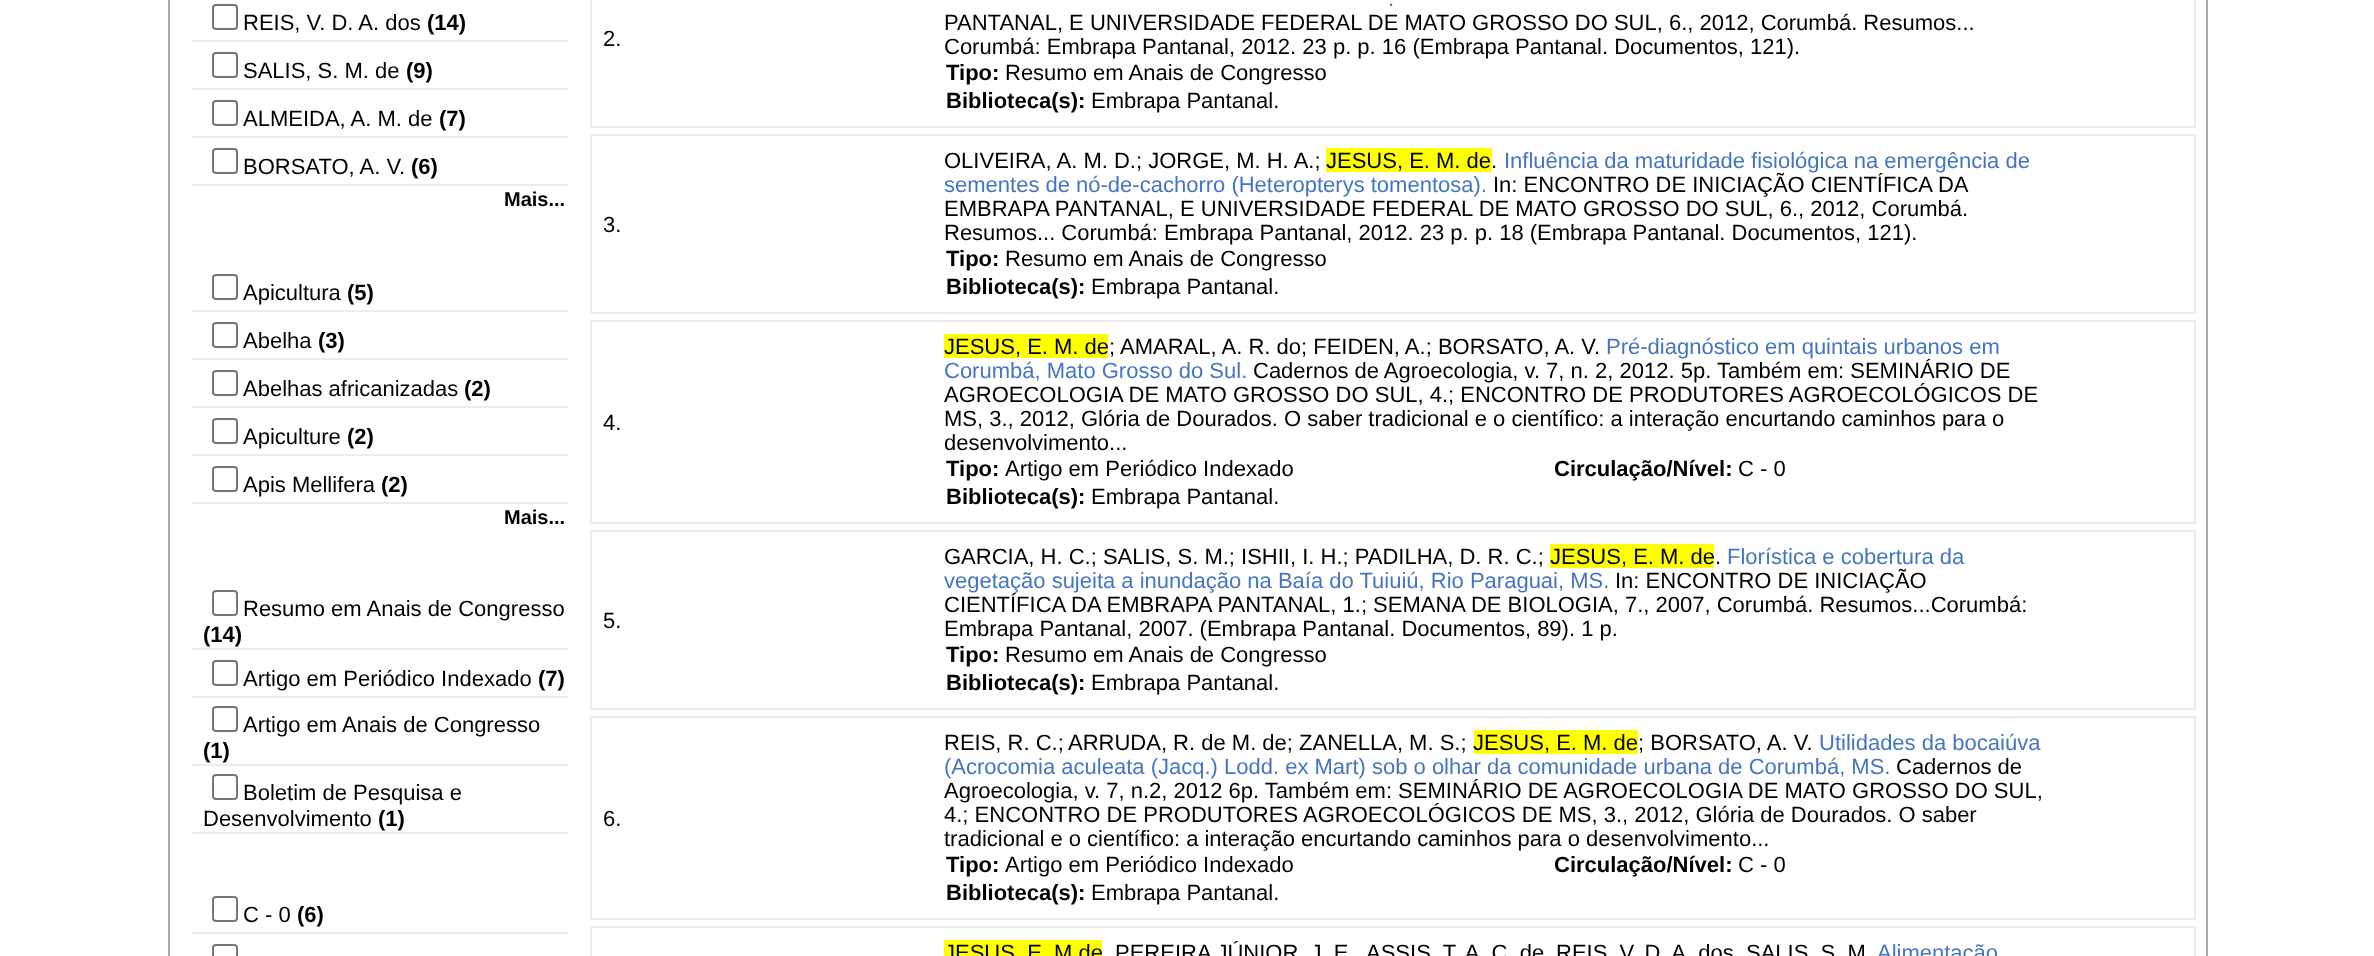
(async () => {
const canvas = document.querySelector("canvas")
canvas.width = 2374
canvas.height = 956
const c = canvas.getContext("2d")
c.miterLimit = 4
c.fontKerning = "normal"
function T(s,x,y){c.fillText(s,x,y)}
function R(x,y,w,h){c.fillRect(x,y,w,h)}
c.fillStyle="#fff"
R(0,0,2374,956)
c.strokeStyle="#aaa"
c.lineWidth=2
c.strokeRect(169,-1,2038,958)
c.fillStyle="#ececec"
R(192,40,376,2)
c.beginPath()
c.roundRect(213,5,24,24,3)
c.strokeStyle="#767676"
c.stroke()
c.font="22px Liberation Sans"
c.fillStyle="#000"
T("REIS, V. D. A. dos",243,30)
c.font="bold 22px Liberation Sans"
T("(14)",427,30)
c.fillStyle="#ececec"
R(192,88,376,2)
c.beginPath()
c.roundRect(213,53,24,24,3)
c.stroke()
c.font="22px Liberation Sans"
c.fillStyle="#000"
T("SALIS, S. M. de",243,78)
c.font="bold 22px Liberation Sans"
T("(9)",406,78)
c.fillStyle="#ececec"
R(192,136,376,2)
c.beginPath()
c.roundRect(213,101,24,24,3)
c.stroke()
c.font="22px Liberation Sans"
c.fillStyle="#000"
T("ALMEIDA, A. M. de",243,126)
c.font="bold 22px Liberation Sans"
T("(7)",439,126)
c.fillStyle="#ececec"
R(192,184,376,2)
c.beginPath()
c.roundRect(213,149,24,24,3)
c.stroke()
c.font="22px Liberation Sans"
c.fillStyle="#000"
T("BORSATO, A. V.",243,174)
c.font="bold 22px Liberation Sans"
T("(6)",411,174)
c.font="bold 20px Liberation Sans"
T("Mais...",504,206)
c.fillStyle="#ececec"
R(192,310,376,2)
c.beginPath()
c.roundRect(213,275,24,24,3)
c.stroke()
c.font="22px Liberation Sans"
c.fillStyle="#000"
T("Apicultura",243,300)
c.font="bold 22px Liberation Sans"
T("(5)",347,300)
c.fillStyle="#ececec"
R(192,358,376,2)
c.beginPath()
c.roundRect(213,323,24,24,3)
c.stroke()
c.font="22px Liberation Sans"
c.fillStyle="#000"
T("Abelha",243,348)
c.font="bold 22px Liberation Sans"
T("(3)",318,348)
c.fillStyle="#ececec"
R(192,406,376,2)
c.beginPath()
c.roundRect(213,371,24,24,3)
c.stroke()
c.font="22px Liberation Sans"
c.fillStyle="#000"
T("Abelhas africanizadas",243,396)
c.font="bold 22px Liberation Sans"
T("(2)",464,396)
c.fillStyle="#ececec"
R(192,454,376,2)
c.beginPath()
c.roundRect(213,419,24,24,3)
c.stroke()
c.font="22px Liberation Sans"
c.fillStyle="#000"
T("Apiculture",243,444)
c.font="bold 22px Liberation Sans"
T("(2)",347,444)
c.fillStyle="#ececec"
R(192,502,376,2)
c.beginPath()
c.roundRect(213,467,24,24,3)
c.stroke()
c.font="22px Liberation Sans"
c.fillStyle="#000"
T("Apis Mellifera",243,492)
c.font="bold 22px Liberation Sans"
T("(2)",381,492)
c.font="bold 20px Liberation Sans"
T("Mais...",504,524)
c.fillStyle="#ececec"
R(192,648,376,2)
c.beginPath()
c.roundRect(213,591,24,24,3)
c.stroke()
c.font="22px Liberation Sans"
c.fillStyle="#000"
T("Resumo em Anais de Congresso",243,616)
c.font="bold 22px Liberation Sans"
T("(14)",203,642)
c.fillStyle="#ececec"
R(192,696,376,2)
c.beginPath()
c.roundRect(213,661,24,24,3)
c.stroke()
c.font="22px Liberation Sans"
c.fillStyle="#000"
T("Artigo em Periódico Indexado",243,686)
c.font="bold 22px Liberation Sans"
T("(7)",538,686)
c.fillStyle="#ececec"
R(192,764,376,2)
c.beginPath()
c.roundRect(213,707,24,24,3)
c.stroke()
c.font="22px Liberation Sans"
c.fillStyle="#000"
T("Artigo em Anais de Congresso",243,732)
c.font="bold 22px Liberation Sans"
T("(1)",203,758)
c.fillStyle="#ececec"
R(192,832,376,2)
c.beginPath()
c.roundRect(213,775,24,24,3)
c.stroke()
c.font="22px Liberation Sans"
c.fillStyle="#000"
T("Boletim de Pesquisa e",243,800)
T("Desenvolvimento",203,826)
c.font="bold 22px Liberation Sans"
T("(1)",378,826)
c.fillStyle="#ececec"
R(192,932,376,2)
c.beginPath()
c.roundRect(213,897,24,24,3)
c.stroke()
c.font="22px Liberation Sans"
c.fillStyle="#000"
T("C - 0",243,922)
c.font="bold 22px Liberation Sans"
T("(6)",297,922)
c.beginPath()
c.roundRect(213,945,24,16,3)
c.stroke()
c.strokeStyle="#ececec"
c.strokeRect(591,-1,1604,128)
c.font="22px Liberation Sans"
T("2.",603,46)
c.fillStyle="#4375c4"
T(".",1388,6)
c.fillStyle="#000"
T("PANTANAL, E UNIVERSIDADE FEDERAL DE MATO GROSSO DO SUL, 6., 2012, Corumbá. Resumos...",944,30)
T("Corumbá: Embrapa Pantanal, 2012. 23 p. p. 16 (Embrapa Pantanal. Documentos, 121).",944,54)
c.font="bold 22px Liberation Sans"
T("Tipo:",946,80)
c.font="22px Liberation Sans"
T("Resumo em Anais de Congresso",1005,80)
c.font="bold 22px Liberation Sans"
T("Biblioteca(s):",946,108)
c.font="22px Liberation Sans"
T("Embrapa Pantanal.",1091,108)
c.strokeRect(591,135,1604,178)
T("3.",603,232)
T("OLIVEIRA, A. M. D.; JORGE, M. H. A.;",944,168)
c.fillStyle="#ff0"
R(1326,148,166,24)
c.fillStyle="#000"
T("JESUS, E. M. de.",1326,168)
c.fillStyle="#4375c4"
T("Influência da maturidade fisiológica na emergência de",1504,168)
T("sementes de nó-de-cachorro (Heteropterys tomentosa).",944,192)
c.fillStyle="#000"
T("In: ENCONTRO DE INICIAÇÃO CIENTÍFICA DA",1493,192)
T("EMBRAPA PANTANAL, E UNIVERSIDADE FEDERAL DE MATO GROSSO DO SUL, 6., 2012, Corumbá.",944,216)
T("Resumos... Corumbá: Embrapa Pantanal, 2012. 23 p. p. 18 (Embrapa Pantanal. Documentos, 121).",944,240)
c.font="bold 22px Liberation Sans"
T("Tipo:",946,266)
c.font="22px Liberation Sans"
T("Resumo em Anais de Congresso",1005,266)
c.font="bold 22px Liberation Sans"
T("Biblioteca(s):",946,294)
c.font="22px Liberation Sans"
T("Embrapa Pantanal.",1091,294)
c.strokeRect(591,321,1604,202)
T("4.",603,430)
c.fillStyle="#ff0"
R(944,334,164,24)
c.fillStyle="#000"
T("JESUS, E. M. de;",944,354)
T("AMARAL, A. R. do; FEIDEN, A.; BORSATO, A. V.",1120,354)
c.fillStyle="#4375c4"
T("Pré-diagnóstico em quintais urbanos em",1606,354)
T("Corumbá, Mato Grosso do Sul.",944,378)
c.fillStyle="#000"
T("Cadernos de Agroecologia, v. 7, n. 2, 2012. 5p. Também em: SEMINÁRIO DE",1253,378)
T("AGROECOLOGIA DE MATO GROSSO DO SUL, 4.; ENCONTRO DE PRODUTORES AGROECOLÓGICOS DE",944,402)
T("MS, 3., 2012, Glória de Dourados. O saber tradicional e o científico: a interação encurtando caminhos para o",944,426)
T("desenvolvimento...",944,450)
c.font="bold 22px Liberation Sans"
T("Tipo:",946,476)
c.font="22px Liberation Sans"
T("Artigo em Periódico Indexado",1005,476)
c.font="bold 22px Liberation Sans"
T("Circulação/Nível:",1554,476)
c.font="22px Liberation Sans"
T("C - 0",1738,476)
c.font="bold 22px Liberation Sans"
T("Biblioteca(s):",946,504)
c.font="22px Liberation Sans"
T("Embrapa Pantanal.",1091,504)
c.strokeRect(591,531,1604,178)
T("5.",603,628)
T("GARCIA, H. C.; SALIS, S. M.; ISHII, I. H.; PADILHA, D. R. C.;",944,564)
c.fillStyle="#ff0"
R(1550,544,164,24)
c.fillStyle="#000"
T("JESUS, E. M. de.",1550,564)
c.fillStyle="#4375c4"
T("Florística e cobertura da",1727,564)
T("vegetação sujeita a inundação na Baía do Tuiuiú, Rio Paraguai, MS.",944,588)
c.fillStyle="#000"
T("In: ENCONTRO DE INICIAÇÃO",1615,588)
T("CIENTÍFICA DA EMBRAPA PANTANAL, 1.; SEMANA DE BIOLOGIA, 7., 2007, Corumbá. Resumos...Corumbá:",944,612)
T("Embrapa Pantanal, 2007. (Embrapa Pantanal. Documentos, 89). 1 p.",944,636)
c.font="bold 22px Liberation Sans"
T("Tipo:",946,662)
c.font="22px Liberation Sans"
T("Resumo em Anais de Congresso",1005,662)
c.font="bold 22px Liberation Sans"
T("Biblioteca(s):",946,690)
c.font="22px Liberation Sans"
T("Embrapa Pantanal.",1091,690)
c.strokeRect(591,717,1604,202)
T("6.",603,826)
T("REIS, R. C.;",944,750)
T("ARRUDA, R. de M. de; ZANELLA, M. S.;",1068,750)
c.fillStyle="#ff0"
R(1474,730,164,24)
c.fillStyle="#000"
T("JESUS, E. M. de; BORSATO, A. V.",1473,750)
c.fillStyle="#4375c4"
T("Utilidades da bocaiúva",1819,750)
T("(Acrocomia aculeata (Jacq.) Lodd. ex Mart) sob o olhar da comunidade urbana de Corumbá, MS.",944,774)
c.fillStyle="#000"
T("Cadernos de",1896,774)
T("Agroecologia, v. 7, n.2, 2012 6p. Também em: SEMINÁRIO DE AGROECOLOGIA DE MATO GROSSO DO SUL,",944,798)
T("4.; ENCONTRO DE PRODUTORES AGROECOLÓGICOS DE MS, 3., 2012, Glória de Dourados. O saber",944,822)
T("tradicional e o científico: a interação encurtando caminhos para o desenvolvimento...",944,846)
c.font="bold 22px Liberation Sans"
T("Tipo:",946,872)
c.font="22px Liberation Sans"
T("Artigo em Periódico Indexado",1005,872)
c.font="bold 22px Liberation Sans"
T("Circulação/Nível:",1554,872)
c.font="22px Liberation Sans"
T("C - 0",1738,872)
c.font="bold 22px Liberation Sans"
T("Biblioteca(s):",946,900)
c.font="22px Liberation Sans"
T("Embrapa Pantanal.",1091,900)
c.strokeRect(591,927,1604,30)
c.fillStyle="#ff0"
R(944,940,158,16)
c.fillStyle="#000"
T("JESUS, E. M de",944,960)
T("PEREIRA JÚNIOR, J. E",1115,960)
T("ASSIS, T. A. C. de",1366,960)
T("REIS, V. D. A. dos",1556,960)
T("SALIS, S. M",1746,960)
c.fillStyle="#4375c4"
T("Alimentação",1877,960)
})()
